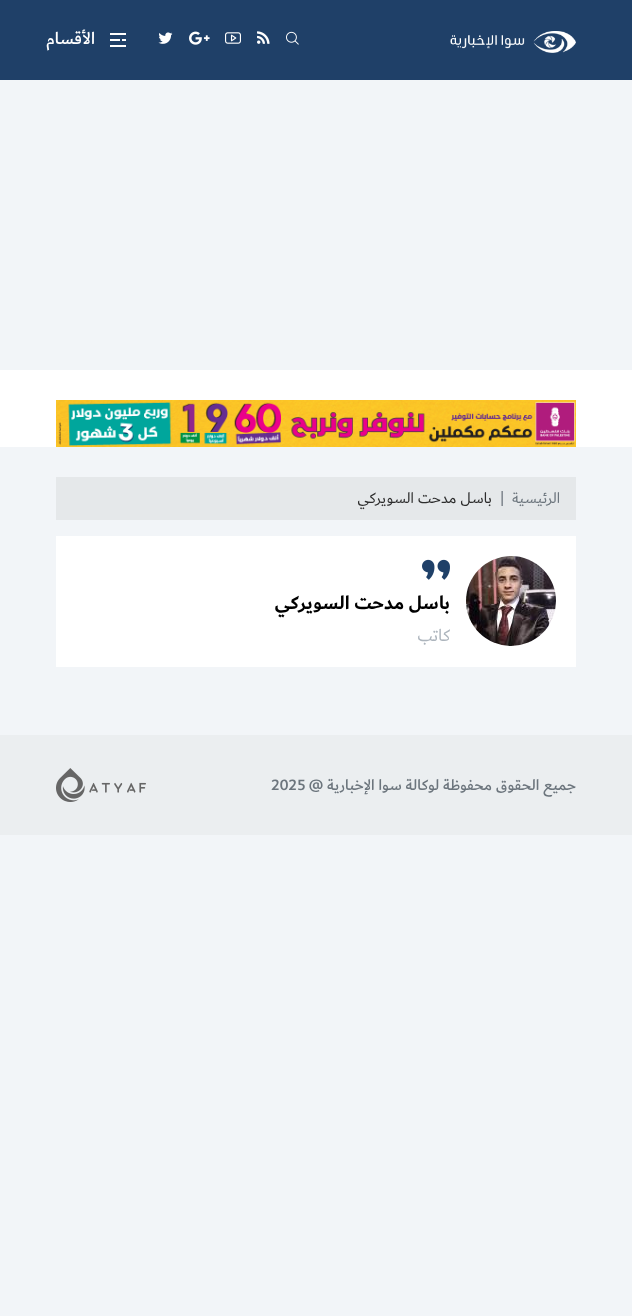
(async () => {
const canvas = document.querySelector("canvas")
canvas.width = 632
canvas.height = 1316
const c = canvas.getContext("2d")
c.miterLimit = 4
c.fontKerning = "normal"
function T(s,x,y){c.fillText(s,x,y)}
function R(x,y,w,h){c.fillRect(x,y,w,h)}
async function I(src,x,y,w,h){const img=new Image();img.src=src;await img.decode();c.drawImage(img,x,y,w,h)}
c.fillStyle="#f2f5f8"
R(0,0,632,1316)
c.fillStyle="#1f4068"
R(0,0,632,80)
await I("1.png",450,31,126,22)
await I("2.png",286,31,13,14)
await I("3.png",257,31,13,13)
await I("4.png",225,32,16,12)
await I("5.png",189,31,21,14)
await I("6.png",158,32,15,12)
c.fillStyle="#fff"
R(110,33,16,2)
R(110,45,16,2)
R(122,39,4,2)
R(110,39,10,2)
c.direction="rtl"
c.font="500 18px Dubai"
T("الأقسام",95,44)
R(0,370,632,77)
await I("7.png",56,400,520,47)
c.fillStyle="#e5e8ea"
R(56,477,520,43)
c.font="16px Dubai"
c.fillStyle="#6c757d"
T("الرئيسية",560,503)
c.direction="ltr"
T("|",500,503)
c.direction="rtl"
c.fillStyle="#2d2d2d"
T("باسل مدحت السويركي",492,503)
c.fillStyle="#fff"
R(56,536,520,131)
await I("8.png",466,556,90,90)
await I("9.png",422,559,28,21)
c.font="bold 20px Dubai"
c.fillStyle="#000"
T("باسل مدحت السويركي",450,609)
c.font="18px Dubai"
c.fillStyle="#adb5bd"
T("كاتب",450,641)
c.fillStyle="#ebeef0"
R(0,735,632,100)
c.font="500 16px Dubai"
c.fillStyle="#6c757d"
T("جميع الحقوق محفوظة لوكالة سوا الإخبارية @",576,790)
c.direction="ltr"
T("2025",271,790)
await I("10.png",56,768,90,34)
})()
